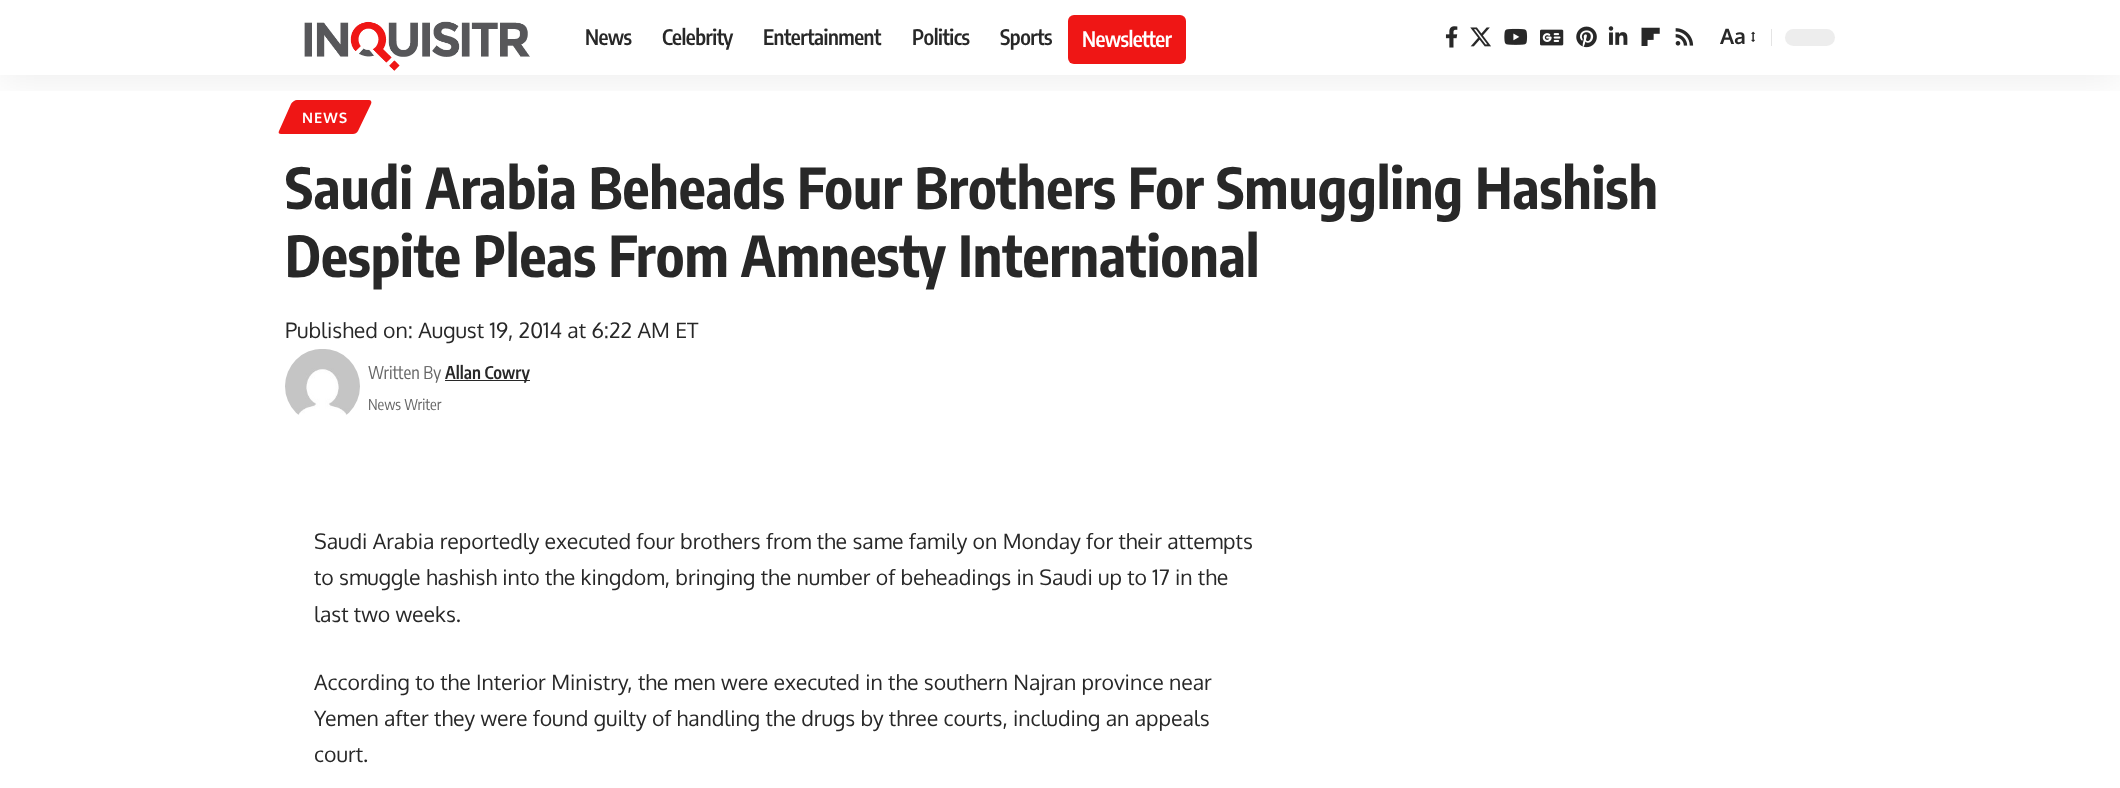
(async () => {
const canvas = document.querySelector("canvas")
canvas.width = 2120
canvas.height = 788
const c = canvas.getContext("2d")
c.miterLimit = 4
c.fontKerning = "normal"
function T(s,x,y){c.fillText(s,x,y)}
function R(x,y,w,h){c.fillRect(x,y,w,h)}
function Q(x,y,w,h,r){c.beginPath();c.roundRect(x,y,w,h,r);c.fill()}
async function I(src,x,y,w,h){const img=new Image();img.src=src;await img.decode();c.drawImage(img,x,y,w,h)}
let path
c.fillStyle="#fff"
R(0,0,2120,788)
c.fillStyle="#ef1615"
path = new Path2D("M297 100h72c2 0 3 2 2 4l-13 27c-1 2-3 3-5 3h-72c-2 0-3-1-2-3l12-27c1-2 4-4 6-4z")
c.fill(path)
c.save()
c.beginPath()
c.rect(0,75,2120,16)
c.clip()
c.fillStyle="#00000012"
c.filter="blur(19px)"
c.beginPath()
c.rect(0,5,2120,75)
c.fill()
c.filter="none"
c.restore()
await I("1.png",304,21,226,50)
c.letterSpacing="-0.5px"
c.font="600 21.25px Encode Sans Condensed"
c.fillStyle="#282828"
T("News",585,45)
T("Celebrity",662,45)
T("Entertainment",763,45)
T("Politics",912,45)
T("Sports",1000,45)
c.fillStyle="#ef1615"
Q(1068,15,118,49,6)
c.fillStyle="#fff"
T("Newsletter",1082,47)
await I("2.png",1445,26,13,22)
await I("3.png",1470,27,21,20)
await I("4.png",1504,28,24,17)
await I("5.png",1540,29,24,17)
await I("6.png",1576,26,21,22)
await I("7.png",1608,26,20,19)
await I("8.png",1641,27,19,19)
await I("9.png",1675,28,19,18)
c.letterSpacing="0px"
c.font="bold 21.25px Oxygen"
c.fillStyle="#282828"
T("Aa",1720,44)
await I("10.png",1751,31,4,11)
c.fillStyle="#e4e4e4"
R(1771,29,1,17)
c.fillStyle="#ededed"
Q(1785,29,50,17,8.5)
c.letterSpacing="1px"
c.font="bold 14.5px Oxygen"
c.fillStyle="#fff"
T("NEWS",302,123)
c.letterSpacing="0px"
c.font="bold 56.25px Encode Sans Condensed"
c.fillStyle="#282828"
T("Saudi Arabia Beheads Four Brothers For Smuggling Hashish",285,209)
T("Despite Pleas From Amnesty International",285,277)
c.font="21.25px Oxygen"
T("Published on: August 19, 2014 at 6:22 AM ET",285,338)
await I("11.png",285,349,75,66)
c.font="17.5px Encode Sans Condensed"
c.fillStyle="#666"
T("Written By",368,379)
c.fillStyle="#282828"
R(445,380,85,1)
c.font="600 17.5px Encode Sans Condensed"
T("Allan Cowry",445,379)
c.font="15px Encode Sans Condensed"
c.fillStyle="#666"
T("News Writer",368,410)
c.font="21.25px Oxygen"
c.fillStyle="#282828"
T("Saudi Arabia reportedly executed four brothers from the same family on Monday for their attempts",314,549)
T("to smuggle hashish into the kingdom, bringing the number of beheadings in Saudi up to 17 in the",314,585)
T("last two weeks.",314,622)
T("According to the Interior Ministry, the men were executed in the southern Najran province near",314,690)
T("Yemen after they were found guilty of handling the drugs by three courts, including an appeals",314,726)
T("court.",314,762)
})()
